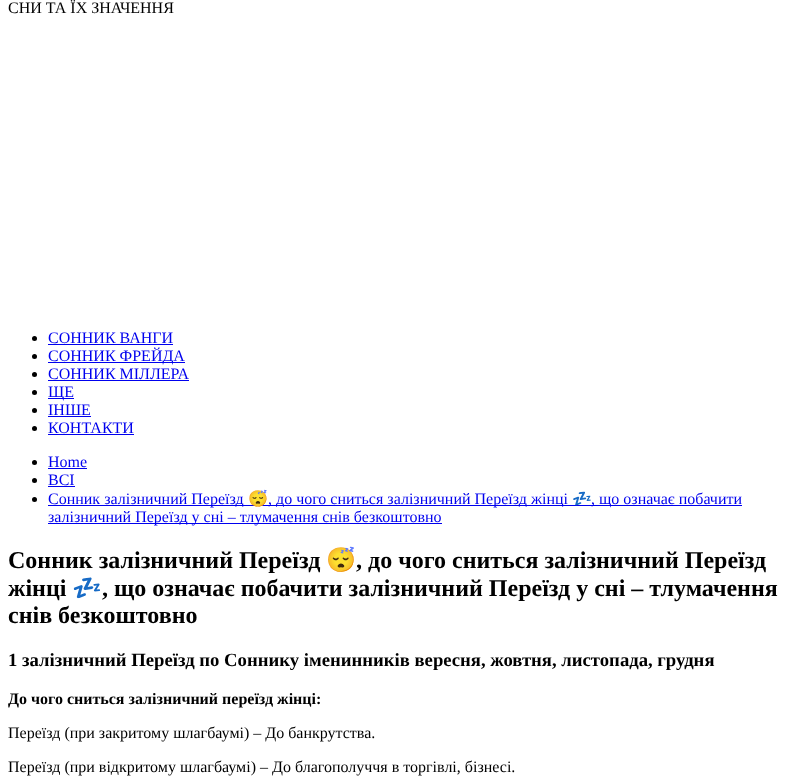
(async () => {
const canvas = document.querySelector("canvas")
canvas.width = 790
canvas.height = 778
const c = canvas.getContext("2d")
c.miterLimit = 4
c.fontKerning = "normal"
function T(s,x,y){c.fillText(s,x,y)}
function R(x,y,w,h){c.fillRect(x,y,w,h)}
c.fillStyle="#fff"
R(0,0,790,778)
c.font="16px Liberation Serif"
c.fillStyle="#000"
T("СНИ ТА ЇХ ЗНАЧЕННЯ",8,13)
c.beginPath()
c.arc(34.5,338.5,2.5,0,7)
c.fill()
c.fillStyle="#00e"
T("СОННИК ВАНГИ",48,343)
R(48,344,125,1)
c.fillStyle="#000"
c.beginPath()
c.arc(34.5,356.5,2.5,0,7)
c.fill()
c.fillStyle="#00e"
R(48,362,137,1)
T("СОННИК ФРЕЙДА",48,361)
c.fillStyle="#000"
c.beginPath()
c.arc(34.5,374.5,2.5,0,7)
c.fill()
c.fillStyle="#00e"
T("СОННИК МІЛЛЕРА",48,379)
R(48,380,141,1)
c.fillStyle="#000"
c.beginPath()
c.arc(34.5,392.5,2.5,0,7)
c.fill()
c.fillStyle="#00e"
R(48,398,26,1)
T("ЩЕ",48,397)
c.fillStyle="#000"
c.beginPath()
c.arc(34.5,410.5,2.5,0,7)
c.fill()
c.fillStyle="#00e"
T("ІНШЕ",48,415)
R(48,416,43,1)
c.fillStyle="#000"
c.beginPath()
c.arc(34.5,428.5,2.5,0,7)
c.fill()
c.fillStyle="#00e"
T("КОНТАКТИ",48,433)
R(48,434,86,1)
c.fillStyle="#000"
c.beginPath()
c.arc(34.5,462.5,2.5,0,7)
c.fill()
c.fillStyle="#00e"
T("Home",48,467)
R(48,468,39,1)
c.fillStyle="#000"
c.beginPath()
c.arc(34.5,480.5,2.5,0,7)
c.fill()
c.fillStyle="#00e"
T("ВСІ",48,485)
R(48,486,27,1)
c.fillStyle="#000"
c.beginPath()
c.arc(34.5,499.5,2.5,0,7)
c.fill()
c.fillStyle="#00e"
R(48,505,694,1)
T("Сонник залізничний Переїзд",48,504)
c.font="16px Noto Color Emoji"
T("😴",248,504)
c.font="16px Liberation Serif"
T(", до чого сниться залізничний Переїзд жінці",268,504)
c.font="16px Noto Color Emoji"
T("💤",572,504)
c.font="16px Liberation Serif"
T(", що означає побачити",591,504)
R(48,523,394,1)
T("залізничний Переїзд у сні – тлумачення снів безкоштовно",48,522)
c.font="bold 24px Liberation Serif"
c.fillStyle="#000"
T("Сонник залізничний Переїзд",8,568)
c.font="bold 24px Noto Color Emoji"
T("😴",326,568)
c.font="bold 24px Liberation Serif"
T(", до чого сниться залізничний Переїзд",356,568)
T("жінці",8,596)
c.font="bold 24px Noto Color Emoji"
T("💤",72,596)
c.font="bold 24px Liberation Serif"
T(", що означає побачити залізничний Переїзд у сні – тлумачення",102,596)
T("снів безкоштовно",8,623)
c.font="bold 18.7px Liberation Serif"
T("1 залізничний Переїзд по Соннику іменинників вересня, жовтня, листопада, грудня",8,666)
c.font="bold 16px Liberation Serif"
T("До чого сниться залізничний переїзд жінці:",8,704)
c.font="16px Liberation Serif"
T("Переїзд (при закритому шлагбаумі) – До банкрутства.",8,738)
T("Переїзд (при відкритому шлагбаумі) – До благополуччя в торгівлі, бізнесі.",8,772)
})()
